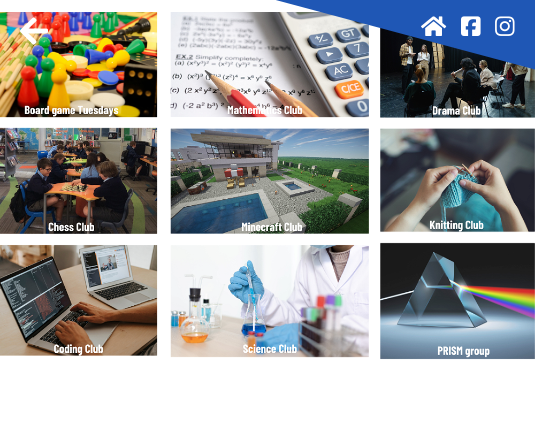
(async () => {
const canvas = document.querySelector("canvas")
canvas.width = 535
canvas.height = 437
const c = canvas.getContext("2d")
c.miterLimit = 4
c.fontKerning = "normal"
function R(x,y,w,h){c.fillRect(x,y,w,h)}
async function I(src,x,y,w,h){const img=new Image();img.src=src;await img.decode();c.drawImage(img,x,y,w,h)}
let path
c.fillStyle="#fff"
R(0,0,535,437)
await I("5.png",0,12,535,348)
await I("1.png",20,17,28,28)
c.fillStyle="#1f57b5"
path = new Path2D("M80-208l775 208l-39 145l-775-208z")
c.fill(path)
await I("2.png",421,16,26,20)
await I("3.png",461,16,20,20)
await I("4.png",495,16,20,20)
})()
